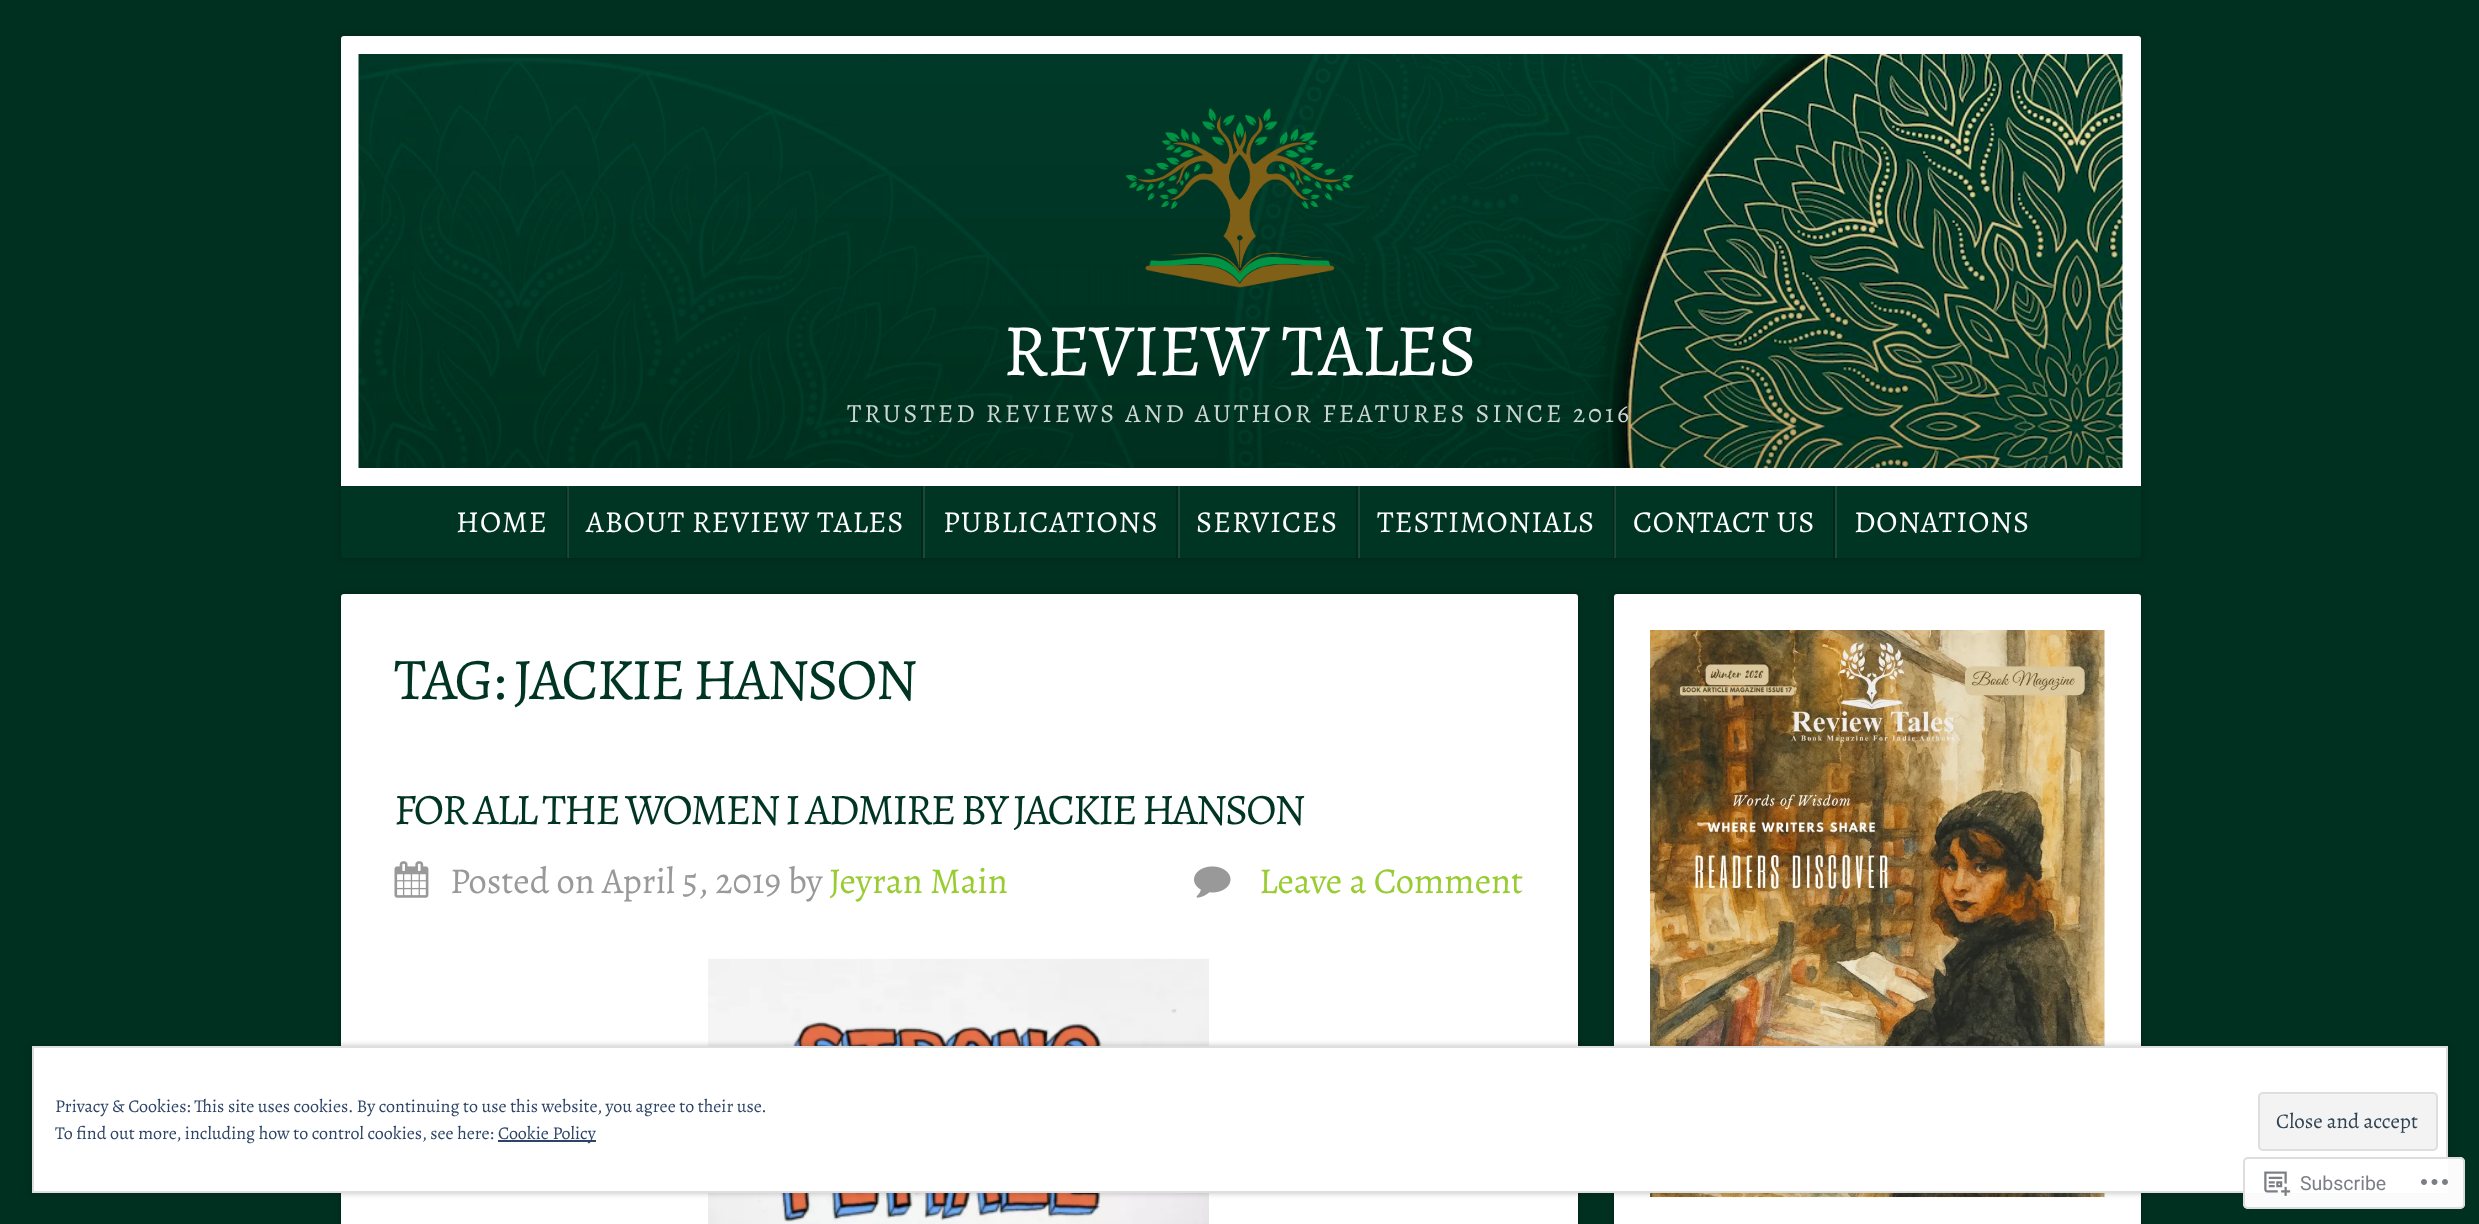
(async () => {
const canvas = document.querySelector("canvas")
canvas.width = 2479
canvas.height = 1224
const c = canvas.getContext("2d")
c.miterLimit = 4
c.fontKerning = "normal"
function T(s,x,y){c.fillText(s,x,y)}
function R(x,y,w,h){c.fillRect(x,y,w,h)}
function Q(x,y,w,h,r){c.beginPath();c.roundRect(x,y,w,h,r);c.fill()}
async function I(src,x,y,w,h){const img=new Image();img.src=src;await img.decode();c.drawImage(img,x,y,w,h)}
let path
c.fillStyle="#00301f"
R(0,0,2479,1224)
c.fillStyle="#0000003d"
c.filter="blur(3px)"
c.beginPath()
c.roundRect(341,36,1800,522,3)
c.fill()
c.filter="none"
c.fillStyle="#fff"
c.beginPath()
c.roundRect(341,36,1800,450,[3,3,0,0])
c.fill()
await I("1.png",358,54,1765,414)
await I("2.png",1125,108,229,180)
c.letterSpacing="-1.5px"
c.font="74.25px Alegreya"
T("REVIEW TALES",1003,375)
c.letterSpacing="3px"
c.font="26.2px Alegreya"
c.fillStyle="#ccd6d2"
T("TRUSTED REVIEWS AND AUTHOR FEATURES SINCE 2016",847,422)
c.fillStyle="#003524"
c.beginPath()
c.roundRect(341,486,1800,72,[0,0,3,3])
c.fill()
c.fillStyle="#1a493a"
R(1615,486,1,72)
R(567,486,2,72)
c.fillStyle="#00281b"
R(566,488,1,70)
c.fillStyle="#1a3e32"
R(567,488,1,70)
c.letterSpacing="0.9px"
c.font="30.5px Alegreya"
c.fillStyle="#fff"
T("HOME",456,532)
c.fillStyle="#00281b"
R(921,486,2,72)
c.fillStyle="#fff"
T("ABOUT REVIEW TALES",586,532)
c.fillStyle="#00281b"
R(1176,486,2,72)
c.fillStyle="#1a493a"
R(923,486,2,72)
c.fillStyle="#fff"
T("PUBLICATIONS",943,532)
c.fillStyle="#00281b"
R(1356,486,2,72)
c.fillStyle="#1a493a"
R(1178,486,2,72)
c.fillStyle="#fff"
T("SERVICES",1196,532)
c.fillStyle="#00281b"
R(1613,486,1,72)
c.fillStyle="#1a3e32"
R(1614,486,1,72)
c.fillStyle="#1a493a"
R(1358,486,2,72)
c.fillStyle="#fff"
T("TESTIMONIALS",1377,532)
c.fillStyle="#00281b"
R(1833,486,2,72)
c.fillStyle="#fff"
T("CONTACT US",1633,532)
c.fillStyle="#1a493a"
R(1835,486,2,72)
c.fillStyle="#fff"
T("DONATIONS",1854,532)
c.fillStyle="#0000003d"
c.filter="blur(3px)"
c.beginPath()
c.roundRect(341,594,1237,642,3)
c.fill()
c.filter="none"
c.fillStyle="#fff"
Q(341,594,1237,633,3)
c.letterSpacing="-2.1px"
c.font="59px Alegreya"
c.fillStyle="#003524"
T("TAG: JACKIE HANSON",394,699)
c.font="43.7px Alegreya"
T("FOR ALL THE WOMEN I ADMIRE BY JACKIE HANSON",394,824)
await I("3.png",394,861,35,37)
c.letterSpacing="0px"
c.font="36.5px Alegreya"
c.fillStyle="#999"
T("Posted on April 5, 2019 by",450,893)
c.fillStyle="#9c3"
T("Jeyran Main",829,893)
await I("4.png",1194,866,37,32)
T("Leave a Comment",1259,893)
await I("5.png",708,958,501,266)
c.fillStyle="#0000003d"
c.filter="blur(3px)"
c.beginPath()
c.roundRect(1614,594,527,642,3)
c.fill()
c.filter="none"
c.fillStyle="#fff"
Q(1614,594,527,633,3)
await I("6.png",1650,630,455,567)
c.fillStyle="#0000003d"
c.filter="blur(3px)"
c.beginPath()
c.roundRect(32,1046,2416,147,3)
c.fill()
c.filter="none"
c.fillStyle="#fff"
c.beginPath()
c.rect(33,1047,2414,145)
c.fill()
c.strokeStyle="#dedede"
c.lineWidth=2
c.stroke()
c.font="18px Alegreya"
c.fillStyle="#2e4467"
T("Privacy & Cookies: This site uses cookies. By continuing to use this website, you agree to their use.",55,1112)
T("To find out more, including how to control cookies, see here:",55,1139)
R(498,1140,98,2)
T("Cookie Policy",498,1139)
c.fillStyle="#f3f3f3"
Q(2258,1092,180,59,5)
c.fillStyle="#f6f6f6"
path = new Path2D("M2264 1095h171c0-1-1-1-2-1h-171c-2 0-3 1-3 3v49c0 1 0 2 1 2v-42c0-4-2-11 4-11z")
c.fill(path)
c.beginPath()
c.roundRect(2259,1093,178,57,4)
c.stroke()
c.font="21px Alegreya"
c.fillStyle="#2e4453"
T("Close and accept",2276,1128)
c.fillStyle="#fffffffa"
Q(2243,1157,222,52,5)
c.beginPath()
c.roundRect(2244,1158,220,50,4)
c.strokeStyle="#dcdcdefa"
c.stroke()
await I("7.png",2264,1171,27,25)
c.font="19.5px Roboto"
c.fillStyle="#7b7f85"
T("Subscribe",2300,1190)
await I("8.png",2421,1179,27,6)
})()
